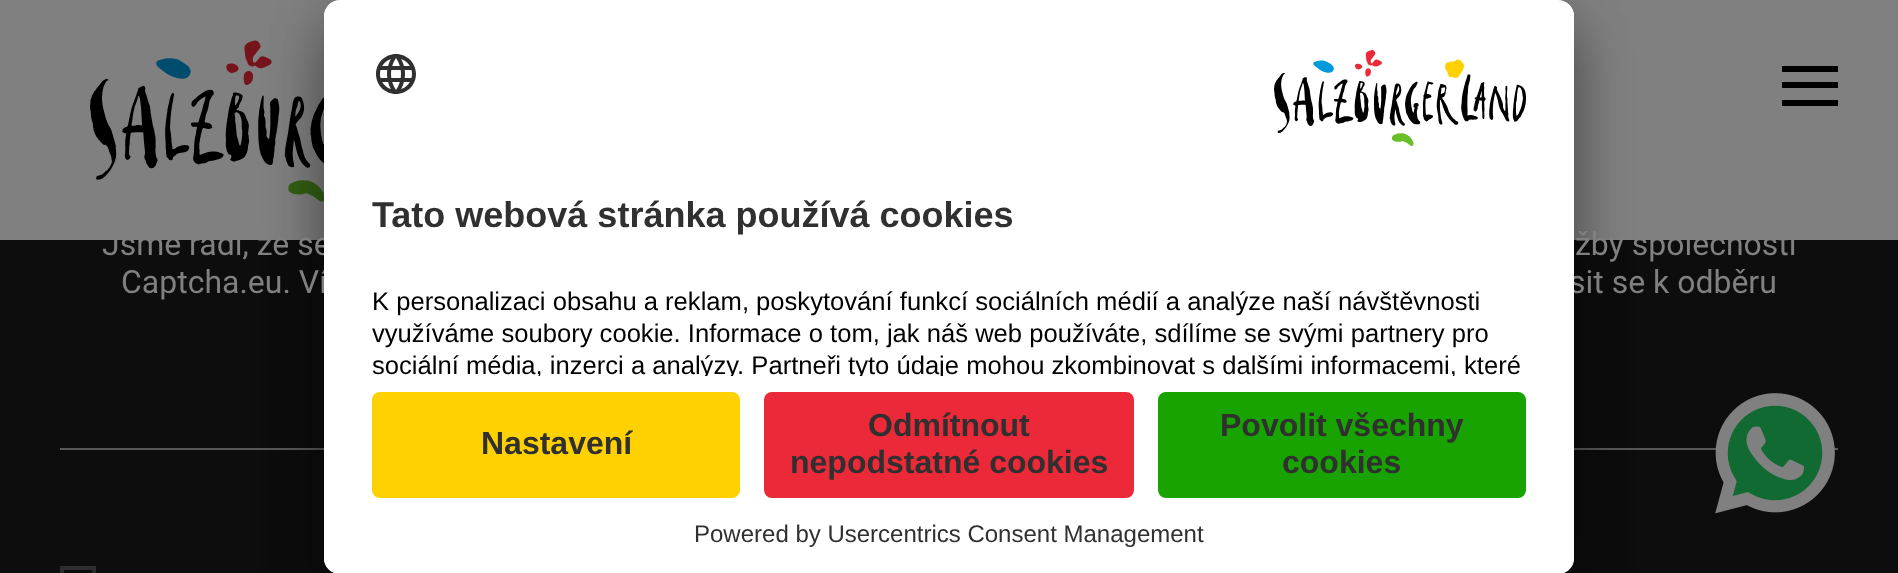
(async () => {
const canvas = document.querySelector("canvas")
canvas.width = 1898
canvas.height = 573
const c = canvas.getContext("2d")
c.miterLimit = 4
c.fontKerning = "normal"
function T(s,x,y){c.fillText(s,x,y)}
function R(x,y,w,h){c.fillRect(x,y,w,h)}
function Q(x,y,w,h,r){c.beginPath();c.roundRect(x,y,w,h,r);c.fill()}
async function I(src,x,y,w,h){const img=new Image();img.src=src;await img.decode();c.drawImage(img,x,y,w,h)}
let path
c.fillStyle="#0d0d0d"
R(0,0,1898,573)
c.fillStyle="#808080"
R(0,0,1898,240)
await I("1.png",90,40,234,162)
c.fillStyle="#000"
R(1782,66,56,6)
R(1782,82,56,6)
R(1782,100,56,6)
c.fillStyle="#585858"
R(60,448,1778,2)
c.fillStyle="#0000004d"
c.filter="blur(28px)"
c.beginPath()
c.roundRect(324,40,1250,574,16)
c.fill()
c.filter="none"
c.fillStyle="#00000038"
c.filter="blur(26px)"
c.beginPath()
c.roundRect(324,10,1250,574,16)
c.fill()
c.filter="none"
c.font="32px Roboto"
c.fillStyle="#808080"
T("Jsme rádi, že se",102,255)
T("Captcha.eu. Ví",121,293)
T("sit se k odběru",1569,293)
c.fillStyle="#fff"
Q(324,0,1250,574,16)
c.save()
c.beginPath()
c.roundRect(324,0,1250,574,16)
c.clip()
c.beginPath()
c.roundRect(324,0,1250,376,[16,16,0,0])
c.clip()
R(324,2,1250,374)
c.restore()
await I("2.png",376,54,40,40)
await I("3.png",1274,50,252,96)
c.font="bold 36px Liberation Sans"
c.fillStyle="#303030"
T("Tato webová stránka používá cookies",372,227)
c.font="25.6px Liberation Sans"
c.fillStyle="#000"
T("K personalizaci obsahu a reklam, poskytování funkcí sociálních médií a analýze naší návštěvnosti",372,310)
T("využíváme soubory cookie. Informace o tom, jak náš web používáte, sdílíme se svými partnery pro",372,342)
c.save()
c.beginPath()
c.roundRect(324,0,1250,376,[16,16,0,0])
c.clip()
T("sociální média, inzerci a analýzy. Partneři tyto údaje mohou zkombinovat s dalšími informacemi, které",372,374)
c.restore()
c.fillStyle="#fff"
path = new Path2D("M324 376h1250v182c0 9-7 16-16 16h-1218c-9 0-16-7-16-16z")
c.fill(path)
c.fillStyle="#ffd100"
Q(372,392,368,106,8)
c.font="bold 32px Liberation Sans"
c.fillStyle="#303030"
T("Nastavení",481,454)
c.fillStyle="#eb2938"
Q(764,392,370,106,8)
c.fillStyle="#303030"
T("Odmítnout",868,436)
T("nepodstatné cookies",790,473)
c.fillStyle="#18a300"
Q(1158,392,368,106,8)
c.fillStyle="#303030"
T("Povolit všechny",1220,436)
T("cookies",1282,473)
c.font="24px Liberation Sans"
T("Powered by Usercentrics Consent Management",694,542)
c.font="32px Roboto"
c.fillStyle="#808080"
T("žby společnosti",1575,255)
c.beginPath()
c.rect(62,568,32,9)
c.strokeStyle="#2d2d2d"
c.lineWidth=4
c.stroke()
await I("4.png",1715,393,120,121)
})()
